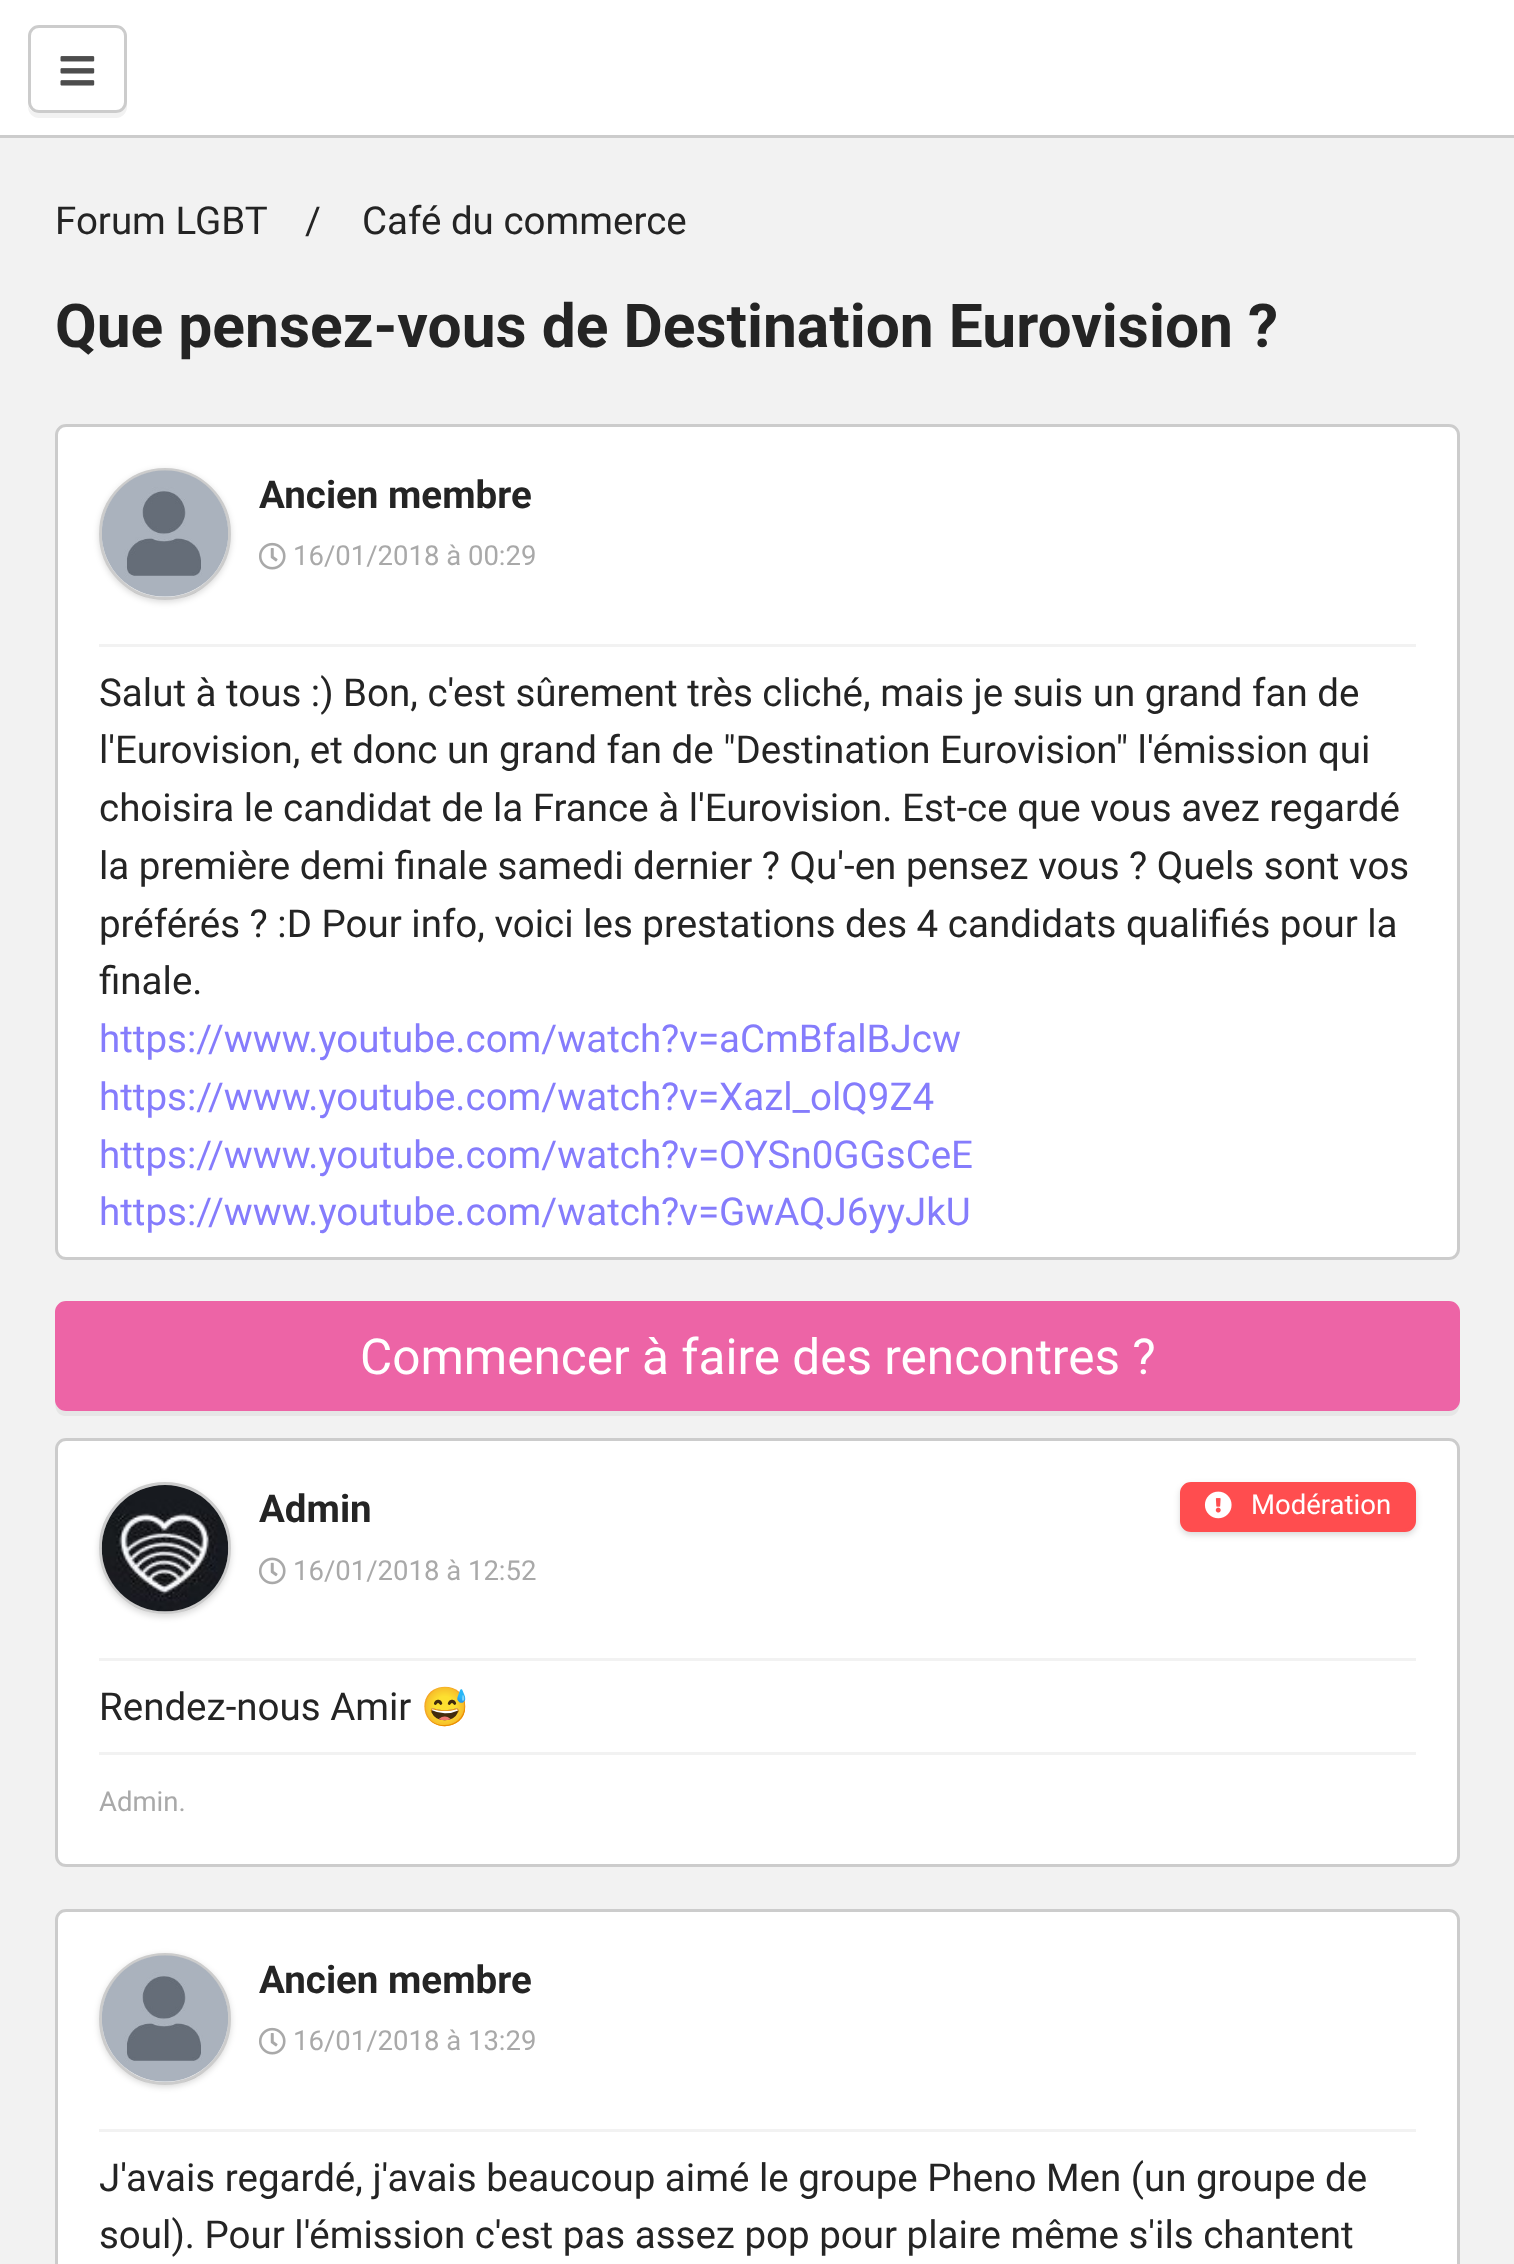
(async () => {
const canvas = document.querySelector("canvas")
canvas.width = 1514
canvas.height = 2264
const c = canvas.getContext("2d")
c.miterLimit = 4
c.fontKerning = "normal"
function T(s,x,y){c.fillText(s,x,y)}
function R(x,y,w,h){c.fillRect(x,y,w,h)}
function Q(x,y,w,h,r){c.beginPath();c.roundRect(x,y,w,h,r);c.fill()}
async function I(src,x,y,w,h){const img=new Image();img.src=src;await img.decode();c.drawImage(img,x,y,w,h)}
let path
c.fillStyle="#f2f2f2"
R(0,0,1514,2264)
c.fillStyle="#fff"
R(0,0,1514,135)
c.fillStyle="#ccc"
R(0,135,1514,3)
c.fillStyle="#f2f2f2"
path = new Path2D("M28 105v2c0 6 5 11 11 11h77c6 0 11-5 11-11v-66l-1-3v64c0 6-4 11-10 11h-78c-4 0-9-3-10-8z")
c.fill(path)
c.fillStyle="#fff"
Q(28,25,99,88,11)
c.beginPath()
c.roundRect(29.5,26.5,96,85,9.5)
c.strokeStyle="#00000033"
c.lineWidth=3
c.stroke()
await I("1.png",60,56,35,30)
c.font="38.5px Roboto"
c.fillStyle="#242424"
T("Forum LGBT",55,234)
T("/",305,234)
T("Café du commerce",362,234)
c.font="bold 60.5px Roboto"
T("Que pensez-vous de Destination Eurovision ?",55,347)
c.fillStyle="#fff"
Q(55,424,1405,836,11)
c.beginPath()
c.roundRect(56.5,425.5,1402,833,9.5)
c.stroke()
c.save()
path = new Path2D("M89 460h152v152h-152zm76 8c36.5 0 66 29.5 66 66c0 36.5-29.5 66-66 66c-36.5 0-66-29.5-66-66c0-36.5 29.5-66 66-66z")
c.clip(path,"evenodd")
c.fillStyle="#00000026"
c.filter="blur(3px)"
c.beginPath()
c.roundRect(99,470,132,132,66)
c.fill()
c.filter="none"
c.restore()
c.beginPath()
c.arc(165,534,64.5,0,7)
c.stroke()
await I("2.png",102,470,126,127)
c.font="bold 38.5px Roboto"
c.fillStyle="#242424"
T("Ancien membre",259,508)
await I("3.png",259,542,27,28)
c.font="27.5px Roboto"
c.fillStyle="#a9a9a9"
T("16/01/2018 à 00:29",293,565)
c.fillStyle="#f2f2f2"
R(99,644,1317,3)
c.font="38.5px Roboto"
c.fillStyle="#242424"
T("Salut à tous :) Bon, c'est sûrement très cliché, mais je suis un grand fan de",99,706)
T("l'Eurovision, et donc un grand fan de \"Destination Eurovision\" l'émission qui",99,763)
T("choisira le candidat de la France à l'Eurovision. Est-ce que vous avez regardé",99,821)
T("la première demi finale samedi dernier ? Qu'-en pensez vous ? Quels sont vos",99,879)
T("préférés ? :D Pour info, voici les prestations des 4 candidats qualifiés pour la",99,937)
T("finale.",99,994)
c.fillStyle="#857cfc"
T("https://www.youtube.com/watch?v=aCmBfalBJcw",99,1052)
T("https://www.youtube.com/watch?v=Xazl_olQ9Z4",99,1110)
T("https://www.youtube.com/watch?v=OYSn0GGsCeE",99,1168)
T("https://www.youtube.com/watch?v=GwAQJ6yyJkU",99,1225)
c.fillStyle="#e6e6e6"
path = new Path2D("M55 1400c0 7 1 16 11 16h1383c8 0 11-7 11-14c-1 5-5 9-11 9h-1383c-6 0-11-5-11-11z")
c.fill(path)
c.fillStyle="#ed64a6"
c.beginPath()
c.roundRect(56.5,1302.5,1402,107,9.5)
c.fill()
c.strokeStyle="#ed64a6"
c.stroke()
c.font="49.5px Roboto"
c.fillStyle="#fff"
T("Commencer à faire des rencontres ?",360,1374)
Q(55,1438,1405,429,11)
c.beginPath()
c.roundRect(56.5,1439.5,1402,426,9.5)
c.strokeStyle="#00000033"
c.stroke()
c.save()
path = new Path2D("M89 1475h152v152h-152zm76 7c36.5 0 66 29.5 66 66c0 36.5-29.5 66-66 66c-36.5 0-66-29.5-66-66c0-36.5 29.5-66 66-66z")
c.clip(path,"evenodd")
c.fillStyle="#00000026"
c.filter="blur(3px)"
c.beginPath()
c.roundRect(99,1485,132,132,66)
c.fill()
c.filter="none"
c.restore()
c.beginPath()
c.arc(165,1548,64.5,0,7)
c.stroke()
await I("4.png",101,1485,128,127)
c.font="bold 38.5px Roboto"
c.fillStyle="#242424"
T("Admin",259,1522)
c.fillStyle="#00000026"
c.filter="blur(3px)"
c.beginPath()
c.roundRect(1180,1485,236,50,11)
c.fill()
c.filter="none"
c.fillStyle="#ff4d4f"
c.beginPath()
c.roundRect(1181.5,1483.5,233,47,9.5)
c.fill()
c.strokeStyle="#ff4d4f"
c.stroke()
await I("5.png",1204,1491,28,28)
c.font="27.5px Roboto"
c.fillStyle="#fff"
T("Modération",1251,1514)
await I("6.png",259,1557,27,28)
c.fillStyle="#a9a9a9"
T("16/01/2018 à 12:52",293,1580)
c.fillStyle="#f2f2f2"
R(99,1658,1317,3)
c.font="38.5px Roboto"
c.fillStyle="#242424"
T("Rendez-nous Amir",99,1720)
c.font="38.5px Noto Color Emoji"
T("😅",421,1720)
c.fillStyle="#f2f2f2"
R(99,1752,1317,3)
c.font="27.5px Roboto"
c.fillStyle="#a9a9a9"
T("Admin.",99,1811)
c.fillStyle="#fff"
path = new Path2D("M66 1909h1383c6 0 11 5 11 11v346h-1405v-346c0-6 5-11 11-11z")
c.fill(path)
c.beginPath()
c.roundRect(56.5,1910.5,1402,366,9.5)
c.strokeStyle="#00000033"
c.stroke()
c.save()
path = new Path2D("M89 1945h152v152h-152zm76 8c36.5 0 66 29.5 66 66c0 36.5-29.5 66-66 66c-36.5 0-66-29.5-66-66c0-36.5 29.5-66 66-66z")
c.clip(path,"evenodd")
c.fillStyle="#00000026"
c.filter="blur(3px)"
c.beginPath()
c.roundRect(99,1955,132,132,66)
c.fill()
c.filter="none"
c.restore()
c.beginPath()
c.arc(165,2019,64.5,0,7)
c.stroke()
await I("7.png",102,1955,126,127)
c.font="bold 38.5px Roboto"
c.fillStyle="#242424"
T("Ancien membre",259,1993)
await I("3.png",259,2027,27,28)
c.font="27.5px Roboto"
c.fillStyle="#a9a9a9"
T("16/01/2018 à 13:29",293,2050)
c.fillStyle="#f2f2f2"
R(99,2129,1317,3)
c.font="38.5px Roboto"
c.fillStyle="#242424"
T("J'avais regardé, j'avais beaucoup aimé le groupe Pheno Men (un groupe de",99,2191)
T("soul). Pour l'émission c'est pas assez pop pour plaire même s'ils chantent",99,2248)
})()
